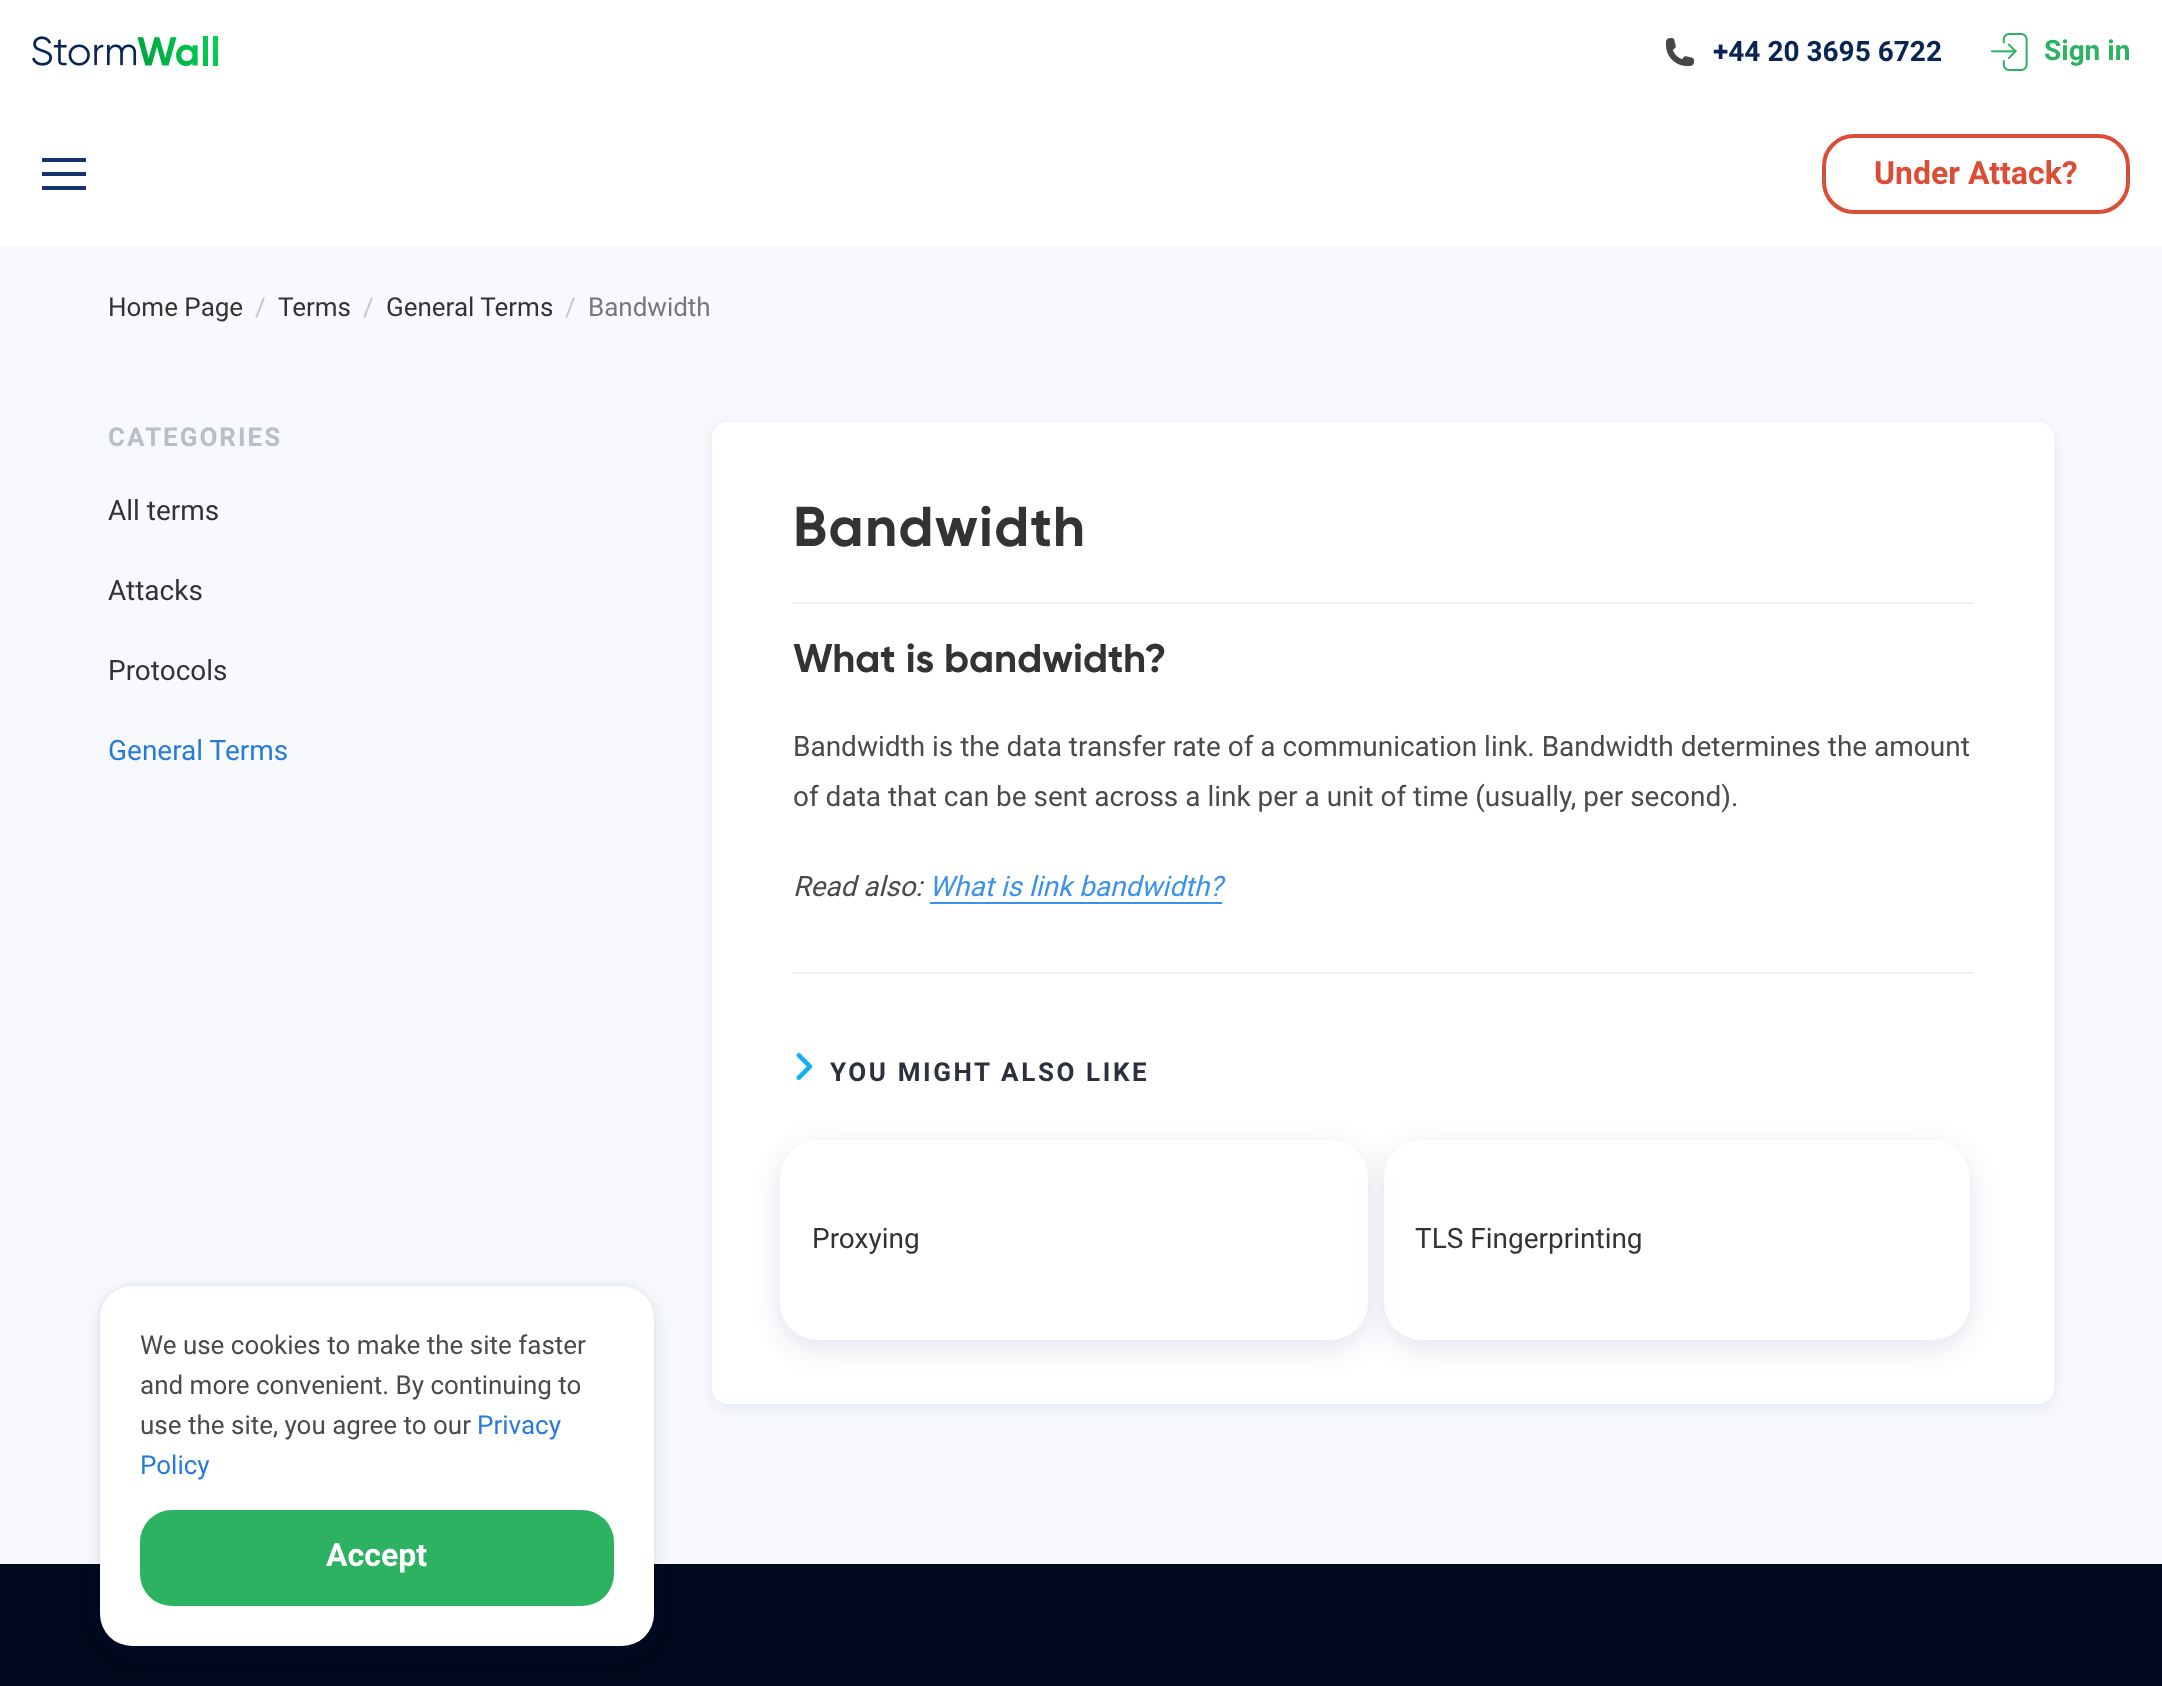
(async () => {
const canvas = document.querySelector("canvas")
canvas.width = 2162
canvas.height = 1686
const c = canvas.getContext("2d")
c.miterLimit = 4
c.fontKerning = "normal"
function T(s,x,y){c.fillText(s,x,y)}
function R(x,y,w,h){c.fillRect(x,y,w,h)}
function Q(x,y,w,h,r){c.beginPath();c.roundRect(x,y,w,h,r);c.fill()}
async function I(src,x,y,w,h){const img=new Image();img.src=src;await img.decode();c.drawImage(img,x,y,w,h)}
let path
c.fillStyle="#f7f9fc"
R(0,0,2162,1686)
c.fillStyle="#fff"
R(0,0,2162,246)
await I("1.png",32,36,186,30)
await I("2.png",1666,38,28,28)
c.font="bold 28px Roboto"
c.fillStyle="#082554"
T("+44 20 3695 6722",1713,61)
await I("3.png",1991,33,37,38)
c.fillStyle="#2db262"
T("Sign in",2044,60)
c.fillStyle="#15346e"
R(42,158,44,4)
R(42,172,44,4)
R(42,186,44,4)
c.beginPath()
c.roundRect(1824,136,304,76,30)
c.strokeStyle="#db4d37"
c.lineWidth=4
c.stroke()
c.font="bold 32px Roboto"
c.fillStyle="#db4d37"
T("Under Attack?",1874,184)
c.font="26px Roboto"
c.fillStyle="#333"
T("Home Page",108,316)
c.fillStyle="#c6c6c6"
T("/",255,316)
c.fillStyle="#333"
T("Terms",278,316)
c.fillStyle="#c6c6c6"
T("/",363,316)
c.fillStyle="#333"
T("General Terms",386,316)
c.fillStyle="#c6c6c6"
T("/",565,316)
c.fillStyle="#777"
T("Bandwidth",588,316)
c.letterSpacing="2px"
c.font="bold 26px Roboto"
c.fillStyle="#b9bfc9"
T("CATEGORIES",108,446)
c.letterSpacing="0px"
c.font="28px Roboto"
c.fillStyle="#333"
T("All terms",108,520)
T("Attacks",108,600)
T("Protocols",108,680)
c.fillStyle="#277ad9"
T("General Terms",108,760)
c.fillStyle="#04164d14"
c.filter="blur(8px)"
c.beginPath()
c.roundRect(712,426,1342,982,16)
c.fill()
c.filter="none"
c.fillStyle="#fff"
Q(712,422,1342,982,16)
c.fillStyle="#f1f1f1"
R(792,602,1182,2)
c.letterSpacing="1.25px"
c.font="bold 56px Gilroy"
c.fillStyle="#333"
T("Bandwidth",793,546)
c.letterSpacing="0px"
c.font="bold 40px Gilroy"
T("What is bandwidth?",793,672)
c.font="28px Roboto"
c.fillStyle="#4a4a4a"
T("Bandwidth is the data transfer rate of a communication link. Bandwidth determines the amount",793,756)
T("of data that can be sent across a link per a unit of time (usually, per second).",793,806)
c.font="italic 28px Roboto"
T("Read also:",793,896)
c.fillStyle="#3b92eb"
T("What is link bandwidth?",929,896)
R(930,902,292,2)
c.fillStyle="#f1f1f1"
R(792,972,1182,2)
await I("4.png",796,1053,17,27)
c.letterSpacing="2.6px"
c.font="bold 26px Roboto"
c.fillStyle="#2c313b"
T("YOU MIGHT ALSO LIKE",830,1081)
c.save()
path = new Path2D("M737 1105h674v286h-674zm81 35h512c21 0 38 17 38 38v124c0 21-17 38-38 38h-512c-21 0-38-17-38-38v-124c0-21 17-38 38-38z")
c.clip(path,"evenodd")
c.fillStyle="#001a661f"
c.filter="blur(14px)"
c.beginPath()
c.roundRect(780,1148,588,200,38)
c.fill()
c.filter="none"
c.restore()
c.letterSpacing="0px"
c.font="28px Roboto"
c.fillStyle="#333"
T("Proxying",812,1248)
c.save()
path = new Path2D("M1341 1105h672v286h-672zm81 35h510c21 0 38 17 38 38v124c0 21-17 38-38 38h-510c-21 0-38-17-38-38v-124c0-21 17-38 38-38z")
c.clip(path,"evenodd")
c.fillStyle="#001a661f"
c.filter="blur(14px)"
c.beginPath()
c.roundRect(1384,1148,586,200,38)
c.fill()
c.filter="none"
c.restore()
T("TLS Fingerprinting",1415,1248)
c.fillStyle="#00091d"
R(0,1564,2162,122)
c.fillStyle="#001a661a"
c.filter="blur(10px)"
c.beginPath()
c.roundRect(100,1292,554,360,32)
c.fill()
c.filter="none"
c.fillStyle="#000c2614"
c.filter="blur(2px)"
c.beginPath()
c.roundRect(100,1286,554,360,32)
c.fill()
c.filter="none"
c.fillStyle="#fff"
Q(100,1286,554,360,32)
c.font="26px Roboto"
c.fillStyle="#4a4a4a"
T("We use cookies to make the site faster",140,1354)
T("and more convenient. By continuing to",140,1394)
T("use the site, you agree to our",140,1434)
c.fillStyle="#277ad9"
T("Privacy",477,1434)
T("Policy",140,1474)
c.fillStyle="#2db262"
Q(140,1510,474,96,32)
c.font="bold 32px Roboto"
c.fillStyle="#fff"
T("Accept",326,1566)
})()
